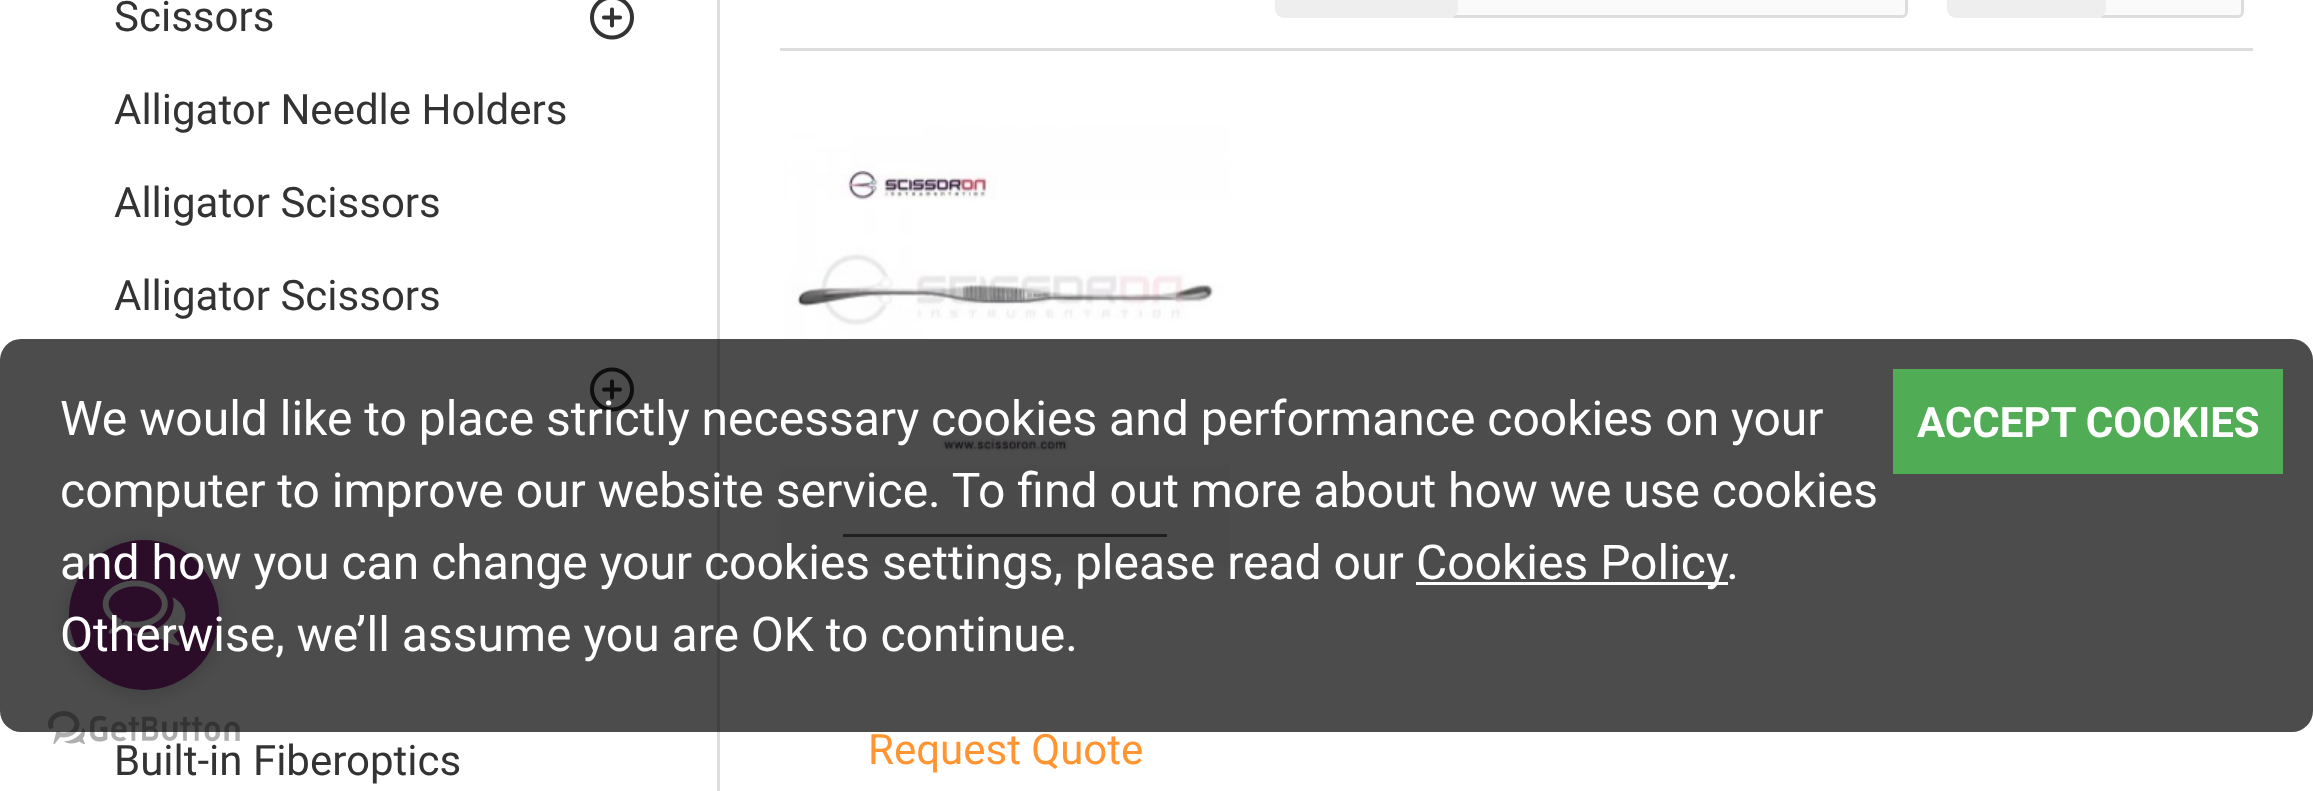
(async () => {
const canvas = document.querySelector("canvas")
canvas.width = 2313
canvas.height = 791
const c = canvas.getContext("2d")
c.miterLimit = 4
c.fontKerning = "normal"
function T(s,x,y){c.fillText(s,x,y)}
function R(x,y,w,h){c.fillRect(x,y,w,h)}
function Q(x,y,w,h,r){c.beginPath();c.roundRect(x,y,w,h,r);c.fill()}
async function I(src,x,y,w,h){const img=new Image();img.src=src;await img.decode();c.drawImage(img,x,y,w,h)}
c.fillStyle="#fff"
R(0,0,2313,791)
c.fillStyle="#ddd"
R(717,0,3,791)
c.font="42px Roboto"
c.fillStyle="#333"
T("Scissors",114,31)
await I("1.png",590,0,44,40)
T("Alligator Needle Holders",114,124)
T("Alligator Scissors",114,217)
T("Alligator Scissors",114,310)
await I("2.png",590,367,44,45)
T("Built-in Fiberoptics",114,775)
c.fillStyle="#ddd"
R(780,48,1473,3)
c.fillStyle="#fafafa"
c.beginPath()
c.roundRect(1450.5,-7.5,456,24,4.5)
c.fill()
c.strokeStyle="#ddd"
c.lineWidth=3
c.stroke()
c.fillStyle="#eee"
Q(1275,-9,183,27,9)
c.fillStyle="#fafafa"
c.beginPath()
c.roundRect(2098.5,-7.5,144,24,4.5)
c.fill()
c.stroke()
c.fillStyle="#eee"
Q(1947,-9,159,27,9)
await I("3.png",780,126,450,339)
c.fillStyle="#f9f8f8"
R(780,465,450,102)
c.fillStyle="#696973"
R(843,534,324,3)
c.fillStyle="#ff9430"
T("Request Quote",868,764)
await I("5.png",48,711,192,33)
c.fillStyle="#88888866"
c.filter="blur(10.5px)"
c.beginPath()
c.roundRect(69,543,150,150,75)
c.fill()
c.filter="none"
c.fillStyle="#932c8b"
c.beginPath()
c.arc(144,615,75,0,7)
c.fill()
await I("4.png",102,580,84,66)
c.fillStyle="#000000b3"
Q(0,339,2313,393,21)
c.font="48px Roboto"
c.fillStyle="#fff"
T("We would like to place strictly necessary cookies and performance cookies on your",60,435)
T("computer to improve our website service. To find out more about how we use cookies",60,507)
T("and how you can change your cookies settings, please read our",60,579)
R(1416,582,312,3)
T("Cookies Policy.",1416,579)
T("Otherwise, we’ll assume you are OK to continue.",60,651)
c.fillStyle="#50ad55"
R(1893,369,390,105)
c.font="bold 42px Roboto"
c.fillStyle="#fff"
T("ACCEPT COOKIES",1917,437)
})()
